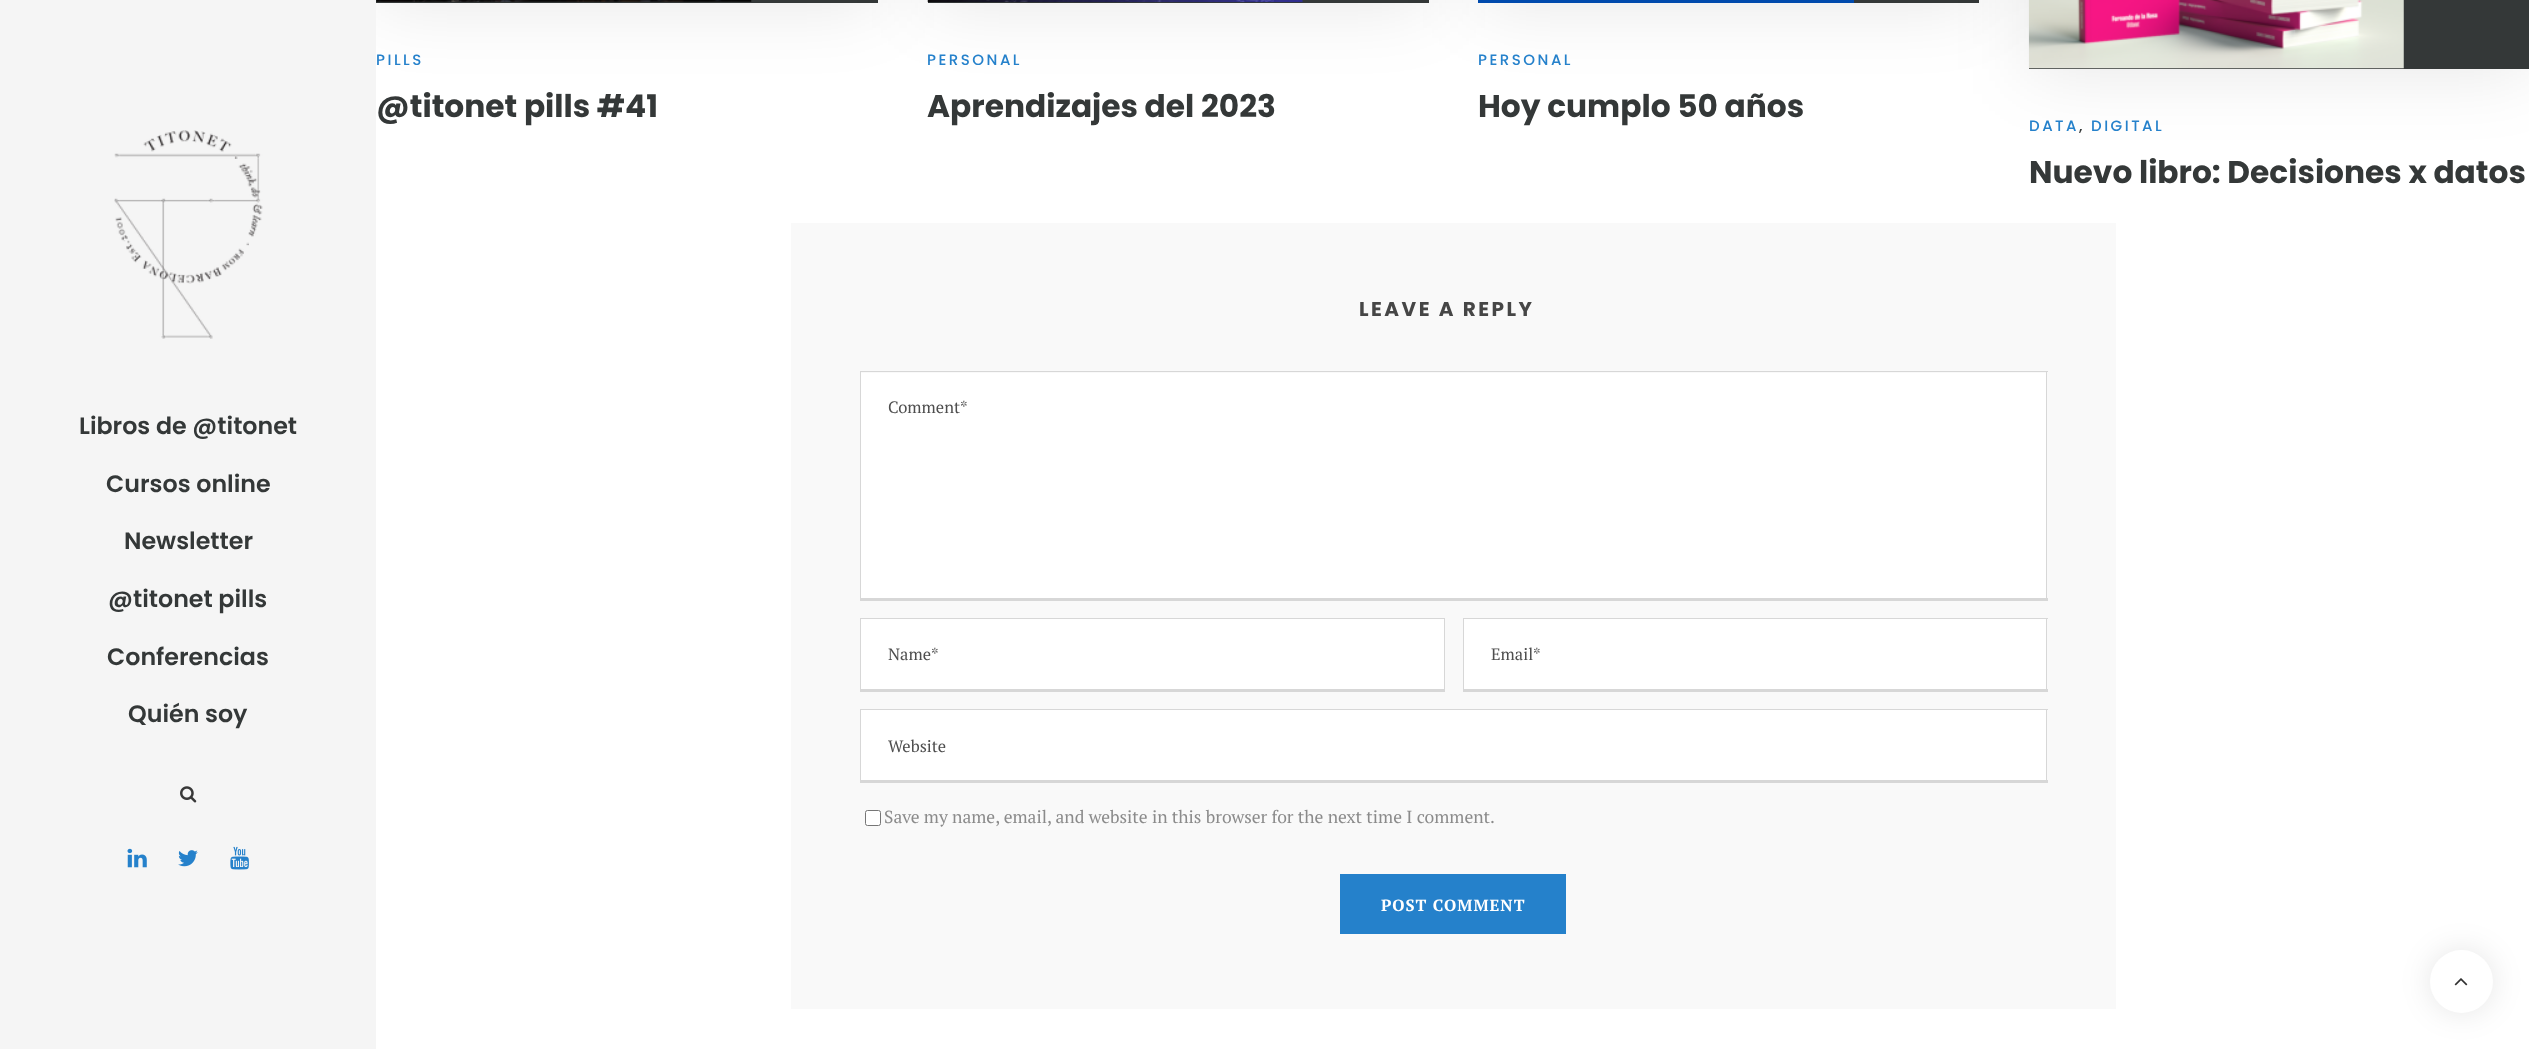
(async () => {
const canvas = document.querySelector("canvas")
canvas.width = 2529
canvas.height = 1049
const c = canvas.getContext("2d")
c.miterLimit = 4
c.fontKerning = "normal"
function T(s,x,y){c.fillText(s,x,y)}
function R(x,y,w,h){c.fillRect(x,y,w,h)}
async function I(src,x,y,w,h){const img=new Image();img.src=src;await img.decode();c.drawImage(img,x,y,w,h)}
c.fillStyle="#fff"
R(0,0,2529,1049)
c.fillStyle="#0000001a"
c.filter="blur(37.5px)"
c.beginPath()
c.rect(376,-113,502,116)
c.fill()
c.filter="none"
c.fillStyle="#f5f5f5"
R(0,0,376,1049)
await I("1.png",114,130,149,209)
c.font="600 23.75px Poppins"
c.fillStyle="#343838"
T("Libros de @titonet",79,434)
T("Cursos online",106,492)
T("Newsletter",124,549)
T("@titonet pills",108,607)
T("Conferencias",107,665)
T("Quién soy",128,722)
await I("2.png",180,786,17,17)
await I("3.png",127,848,20,20)
await I("4.png",178,850,20,17)
await I("5.png",230,846,19,24)
R(376,0,502,3)
await I("6.png",376,0,376,2)
c.letterSpacing="2.5px"
c.font="500 15px Poppins"
c.fillStyle="#2581cb"
T("PILLS",376,65)
c.letterSpacing="0px"
c.font="bold 31.25px Poppins"
c.fillStyle="#343838"
T("@titonet pills #41",376,117)
c.fillStyle="#0000001a"
c.filter="blur(37.5px)"
c.beginPath()
c.rect(928,-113,501,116)
c.fill()
c.filter="none"
c.fillStyle="#343838"
R(928,0,501,3)
await I("7.png",927,0,376,3)
c.letterSpacing="2.5px"
c.font="500 15px Poppins"
c.fillStyle="#2581cb"
T("PERSONAL",927,65)
c.letterSpacing="0px"
c.font="bold 31.25px Poppins"
c.fillStyle="#343838"
T("Aprendizajes del 2023",927,117)
c.fillStyle="#0000001a"
c.filter="blur(37.5px)"
c.beginPath()
c.rect(1479,-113,500,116)
c.fill()
c.filter="none"
c.fillStyle="#343838"
R(1854,0,125,3)
c.fillStyle="#004aad"
R(1478,0,376,3)
c.letterSpacing="2.5px"
c.font="500 15px Poppins"
c.fillStyle="#2581cb"
T("PERSONAL",1478,65)
c.letterSpacing="0px"
c.font="bold 31.25px Poppins"
c.fillStyle="#343838"
T("Hoy cumplo 50 años",1478,117)
c.fillStyle="#0000001a"
c.filter="blur(37.5px)"
c.beginPath()
c.rect(2029,-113,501,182)
c.fill()
c.filter="none"
c.fillStyle="#343838"
R(2029,0,500,69)
await I("8.png",2028,0,376,69)
c.letterSpacing="2.5px"
c.font="500 15px Poppins"
c.fillStyle="#2581cb"
T("DATA",2029,131)
c.fillStyle="#343838"
T(",",2079,131)
c.fillStyle="#2581cb"
T("DIGITAL",2091,131)
c.letterSpacing="0px"
c.font="bold 31.25px Poppins"
c.fillStyle="#343838"
T("Nuevo libro: Decisiones x datos",2029,183)
c.fillStyle="#f9f9f9"
R(791,223,1325,786)
c.letterSpacing="2.5px"
c.font="bold 20px Poppins"
c.fillStyle="#464646"
T("LEAVE A REPLY",1359,316)
c.fillStyle="#fff"
R(861,373,1185,225)
c.fillStyle="#d7d7d7"
R(860,371,1188,1)
R(2046,371,1,229)
R(860,598,1188,3)
R(860,371,1,229)
c.letterSpacing="0px"
c.font="16.5px PT Serif"
c.fillStyle="#4e4e4e"
T("Comment*",888,413)
c.fillStyle="#fff"
R(861,619,583,70)
c.fillStyle="#d7d7d7"
R(860,618,585,1)
R(1444,618,1,73)
R(860,689,585,3)
R(860,618,1,73)
c.fillStyle="#4e4e4e"
T("Name*",888,660)
c.fillStyle="#fff"
R(1464,619,582,70)
c.fillStyle="#d7d7d7"
R(1463,618,585,1)
R(2046,618,1,73)
R(1463,689,585,3)
R(1463,618,1,73)
c.fillStyle="#4e4e4e"
T("Email*",1491,660)
c.fillStyle="#fff"
R(861,710,1185,70)
c.fillStyle="#d7d7d7"
R(860,709,1188,1)
R(2046,709,1,74)
R(860,780,1188,3)
R(860,709,1,74)
c.fillStyle="#4e4e4e"
T("Website",888,752)
c.fillStyle="#fff"
c.beginPath()
c.roundRect(865.5,810.5,15,15,2)
c.fill()
c.strokeStyle="#767676"
c.stroke()
c.font="17.5px PT Serif"
c.fillStyle="#8b8b8b"
T("Save my name, email, and website in this browser for the next time I comment.",884,823)
c.fillStyle="#2581cb"
R(1340,874,226,60)
c.letterSpacing="1px"
c.font="bold 16.25px PT Serif"
c.fillStyle="#fff"
T("POST COMMENT",1381,911)
c.fillStyle="#0000001a"
c.filter="blur(15.5px)"
c.beginPath()
c.roundRect(2430,950,63,63,31.5)
c.fill()
c.filter="none"
c.fillStyle="#fff"
c.beginPath()
c.arc(2461.5,981.5,31.5,0,7)
c.fill()
await I("9.png",2454,978,14,8)
})()
